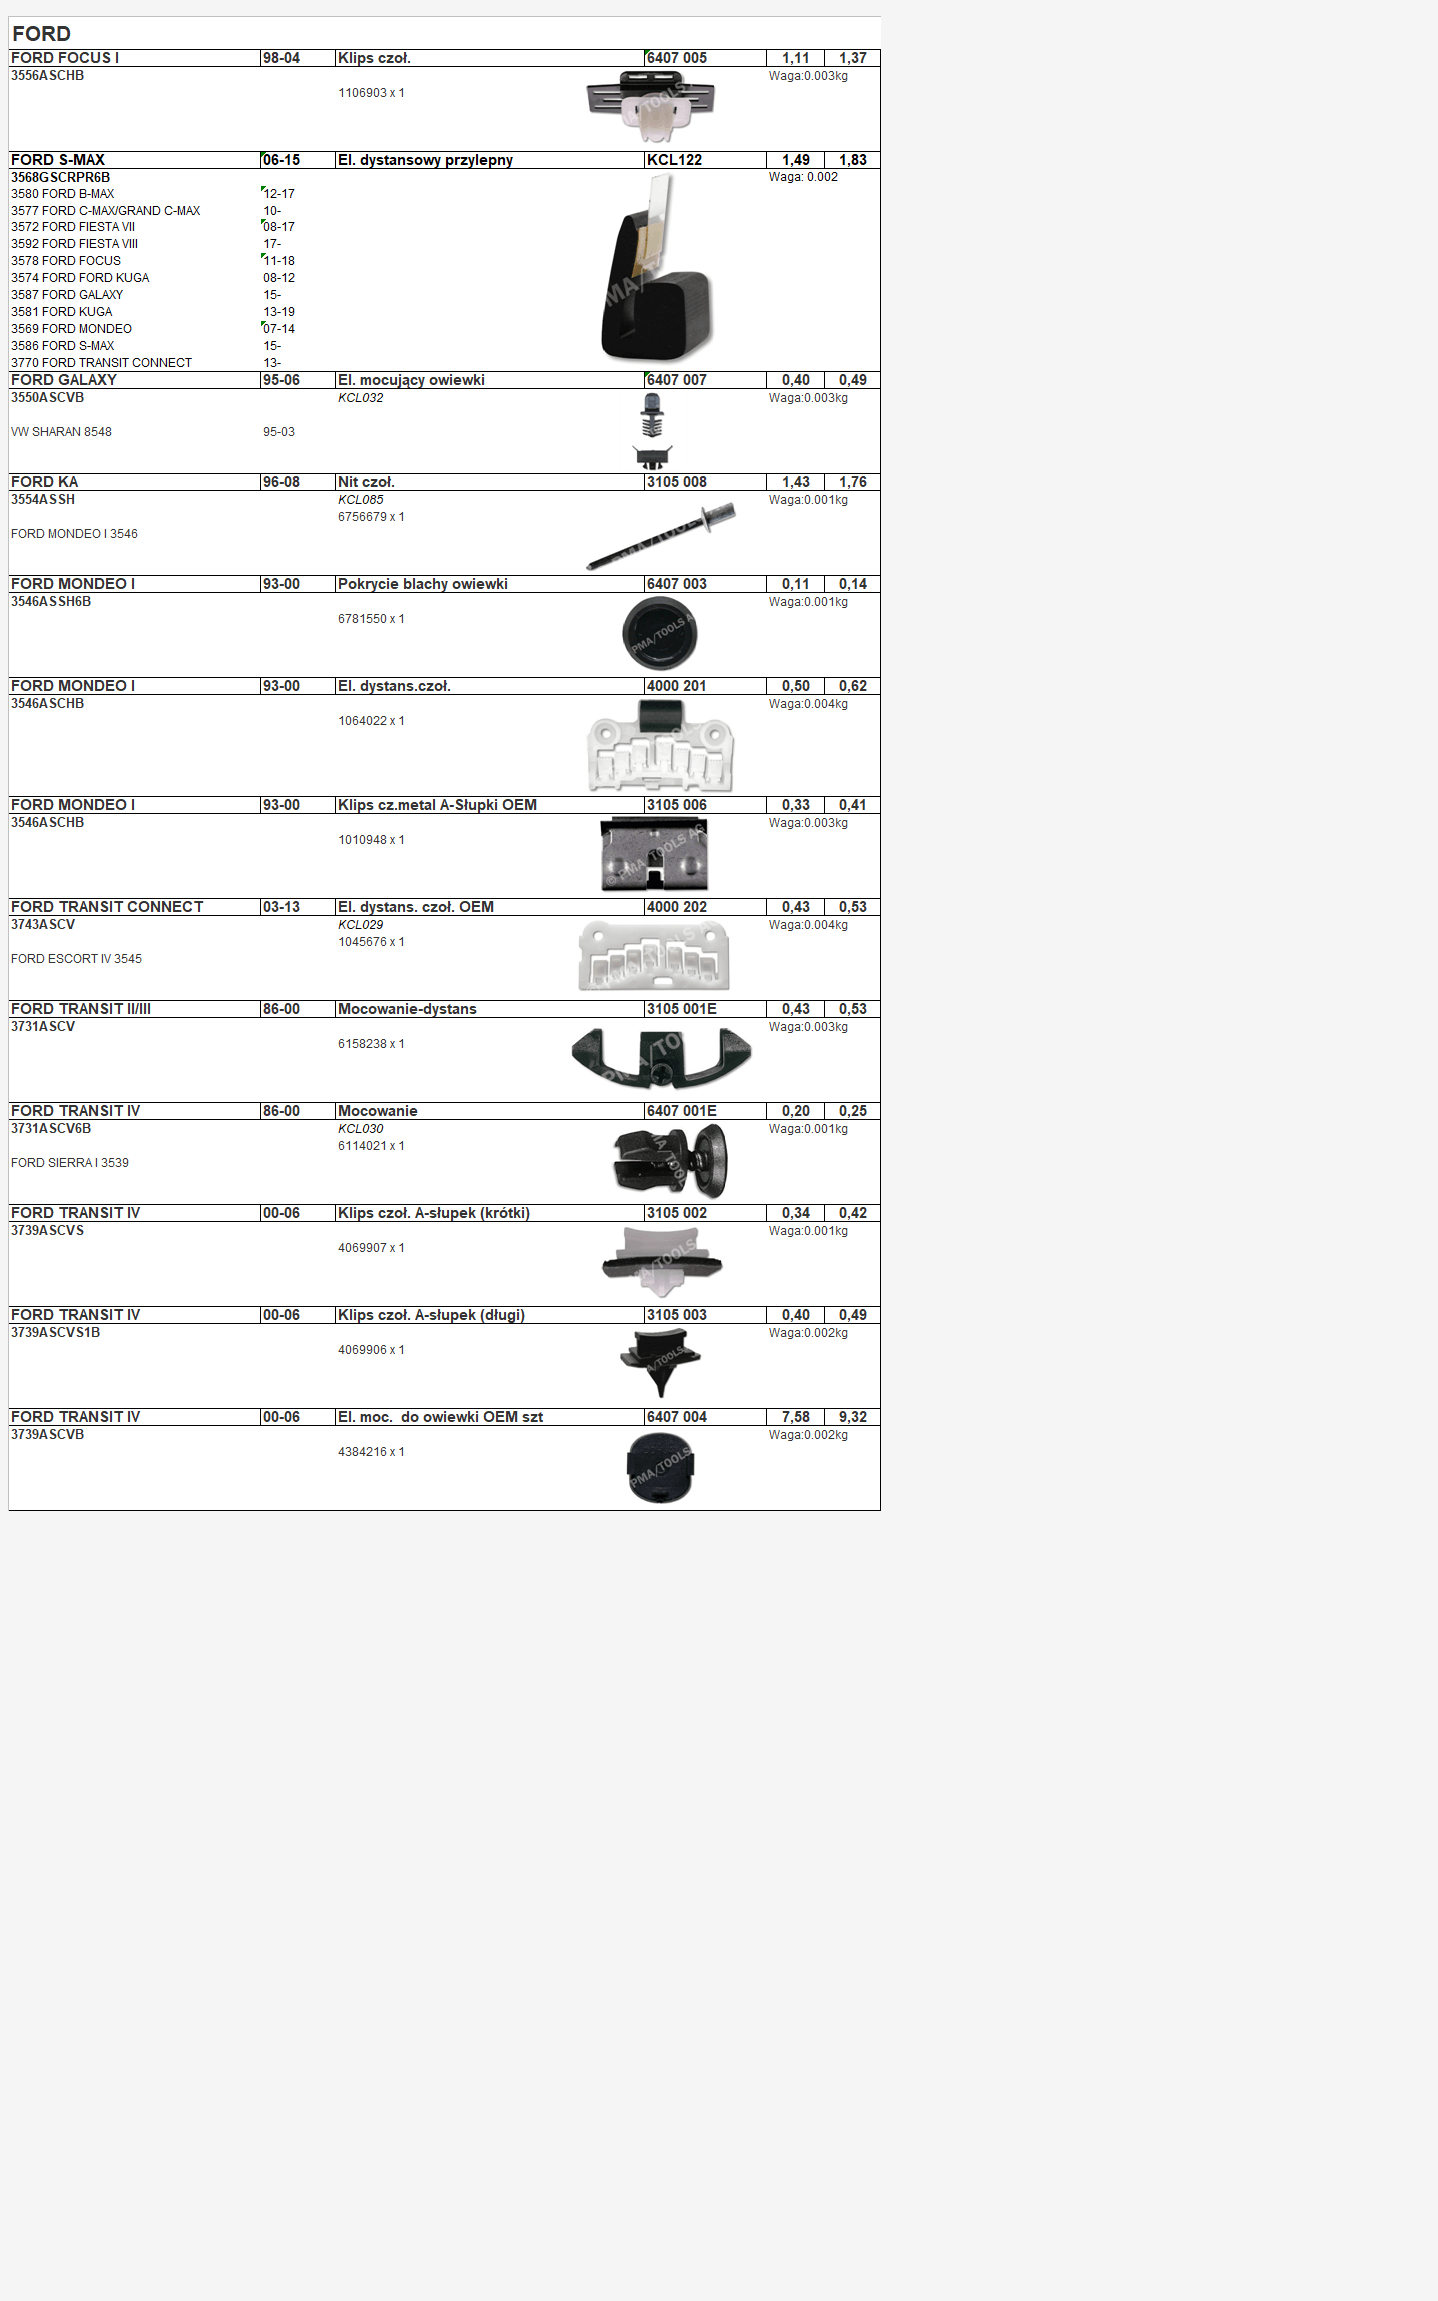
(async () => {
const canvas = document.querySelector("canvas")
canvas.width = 1438
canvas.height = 2301
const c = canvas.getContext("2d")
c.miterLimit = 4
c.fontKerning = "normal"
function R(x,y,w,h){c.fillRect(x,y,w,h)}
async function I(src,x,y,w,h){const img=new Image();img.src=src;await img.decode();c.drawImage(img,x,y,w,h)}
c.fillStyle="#f5f5f5"
R(0,0,1438,2301)
await I("1.png",8,16,873,1495)
})()
